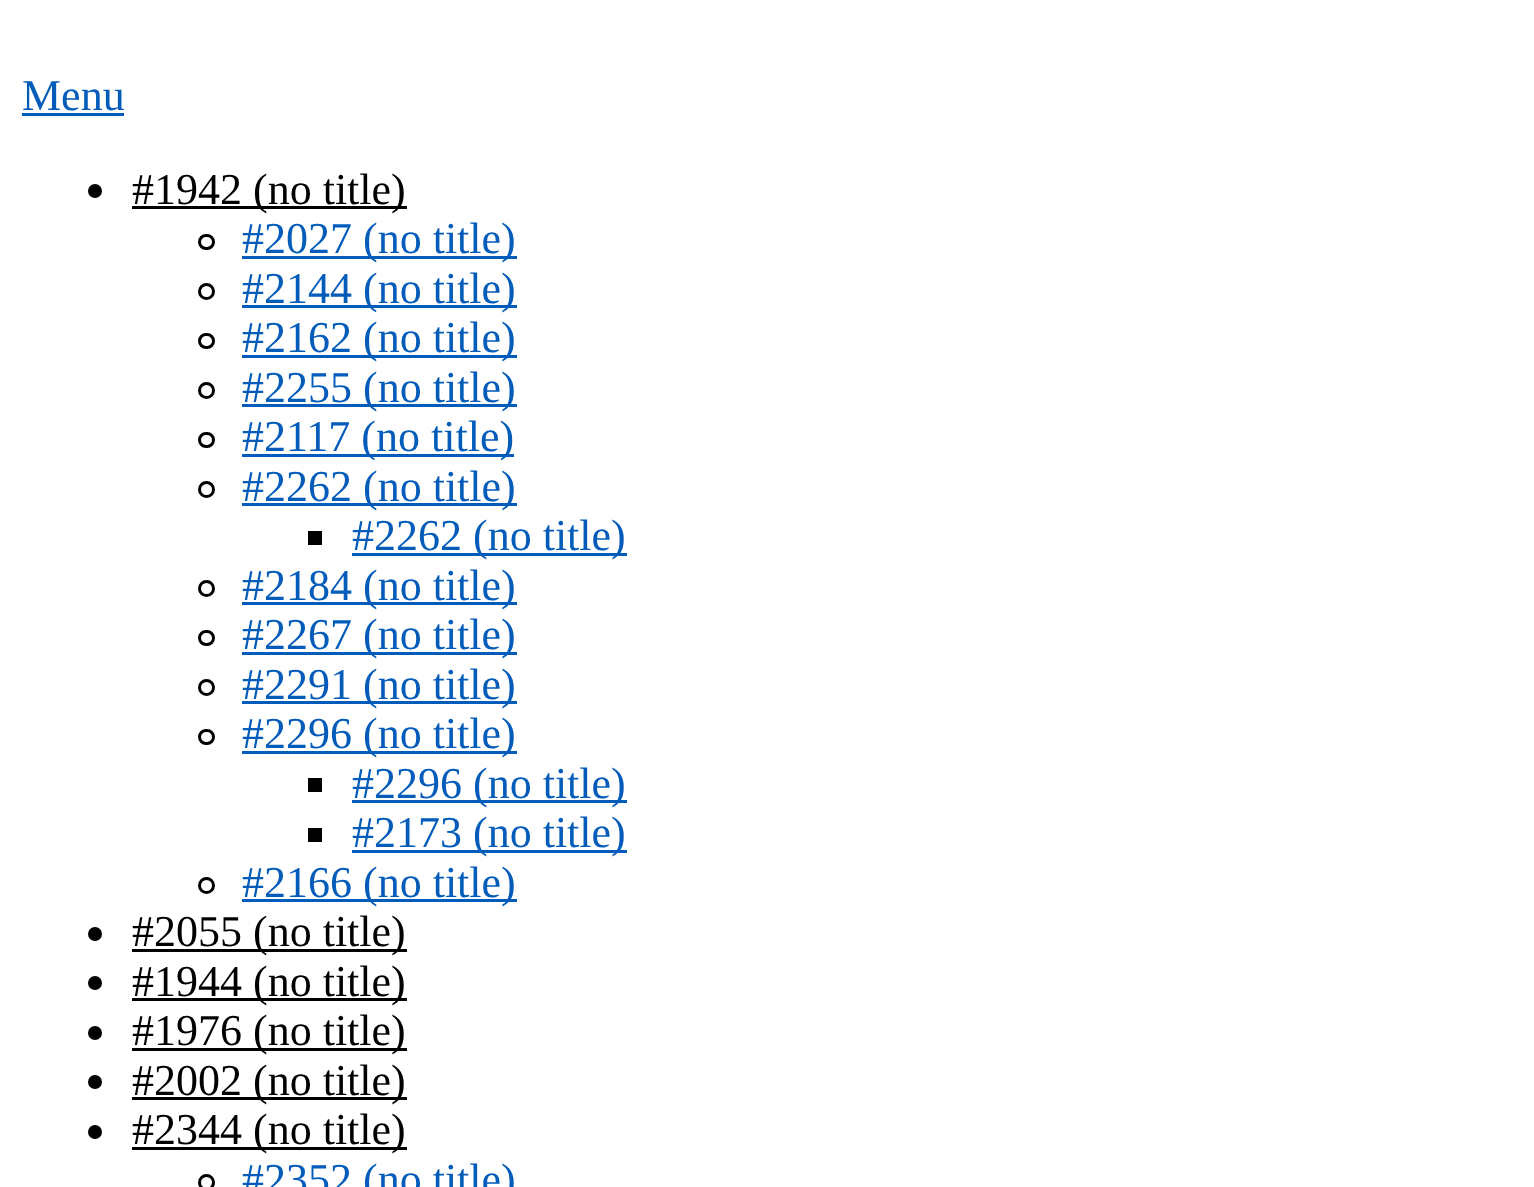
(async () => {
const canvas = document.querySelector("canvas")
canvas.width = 1534
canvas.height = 1187
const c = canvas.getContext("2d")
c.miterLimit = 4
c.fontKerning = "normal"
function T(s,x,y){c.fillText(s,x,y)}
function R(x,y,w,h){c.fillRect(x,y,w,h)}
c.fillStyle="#fff"
R(0,0,1534,1187)
c.font="44px Liberation Serif"
c.fillStyle="#035bba"
T("Menu",22,110)
R(22,113,102,3)
c.fillStyle="#000"
c.beginPath()
c.arc(95,191,7,0,7)
c.fill()
R(132,206,275,3)
T("#1942 (no title)",132,204)
c.beginPath()
c.roundRect(199.5,235.5,14,13,6.5)
c.strokeStyle="#000"
c.lineWidth=3
c.stroke()
c.fillStyle="#035bba"
R(242,256,275,3)
T("#2027 (no title)",242,253)
c.beginPath()
c.arc(206.5,291.5,7,0,7)
c.stroke()
R(242,305,275,3)
T("#2144 (no title)",242,303)
c.beginPath()
c.roundRect(199.5,334.5,14,13,6.5)
c.stroke()
R(242,355,275,3)
T("#2162 (no title)",242,352)
c.beginPath()
c.arc(206.5,390.5,7,0,7)
c.stroke()
R(242,404,275,3)
T("#2255 (no title)",242,402)
c.beginPath()
c.roundRect(199.5,433.5,14,13,6.5)
c.stroke()
R(242,454,272,3)
T("#2117 (no title)",242,451)
c.beginPath()
c.arc(206.5,489.5,7,0,7)
c.stroke()
R(242,503,275,3)
T("#2262 (no title)",242,501)
c.fillStyle="#000"
R(308,531,14,14)
c.fillStyle="#035bba"
R(352,553,275,3)
T("#2262 (no title)",352,550)
c.beginPath()
c.arc(206.5,588.5,7,0,7)
c.stroke()
R(242,602,275,3)
T("#2184 (no title)",242,600)
c.beginPath()
c.roundRect(199.5,631.5,14,13,6.5)
c.stroke()
R(242,652,275,3)
T("#2267 (no title)",242,649)
c.beginPath()
c.arc(206.5,687.5,7,0,7)
c.stroke()
R(242,701,275,3)
T("#2291 (no title)",242,699)
c.beginPath()
c.roundRect(199.5,730.5,14,13,6.5)
c.stroke()
R(242,751,275,3)
T("#2296 (no title)",242,748)
c.fillStyle="#000"
R(308,778,14,14)
c.fillStyle="#035bba"
R(352,800,275,3)
T("#2296 (no title)",352,798)
c.fillStyle="#000"
R(308,828,14,14)
c.fillStyle="#035bba"
R(352,850,275,3)
T("#2173 (no title)",352,847)
c.beginPath()
c.arc(206.5,885.5,7,0,7)
c.stroke()
R(242,899,275,3)
T("#2166 (no title)",242,897)
c.fillStyle="#000"
c.beginPath()
c.arc(95,934,7,0,7)
c.fill()
R(132,949,275,3)
T("#2055 (no title)",132,946)
c.beginPath()
c.arc(95,983,7,0,7)
c.fill()
R(132,998,275,3)
T("#1944 (no title)",132,996)
c.beginPath()
c.arc(95,1033,7,0,7)
c.fill()
R(132,1048,275,3)
T("#1976 (no title)",132,1045)
c.beginPath()
c.arc(95,1082,7,0,7)
c.fill()
R(132,1097,275,3)
T("#2002 (no title)",132,1095)
c.beginPath()
c.arc(95,1132,7,0,7)
c.fill()
R(132,1147,275,3)
T("#2344 (no title)",132,1144)
c.beginPath()
c.arc(206.5,1182.5,7,0,7)
c.stroke()
c.fillStyle="#035bba"
T("#2352 (no title)",242,1194)
})()
